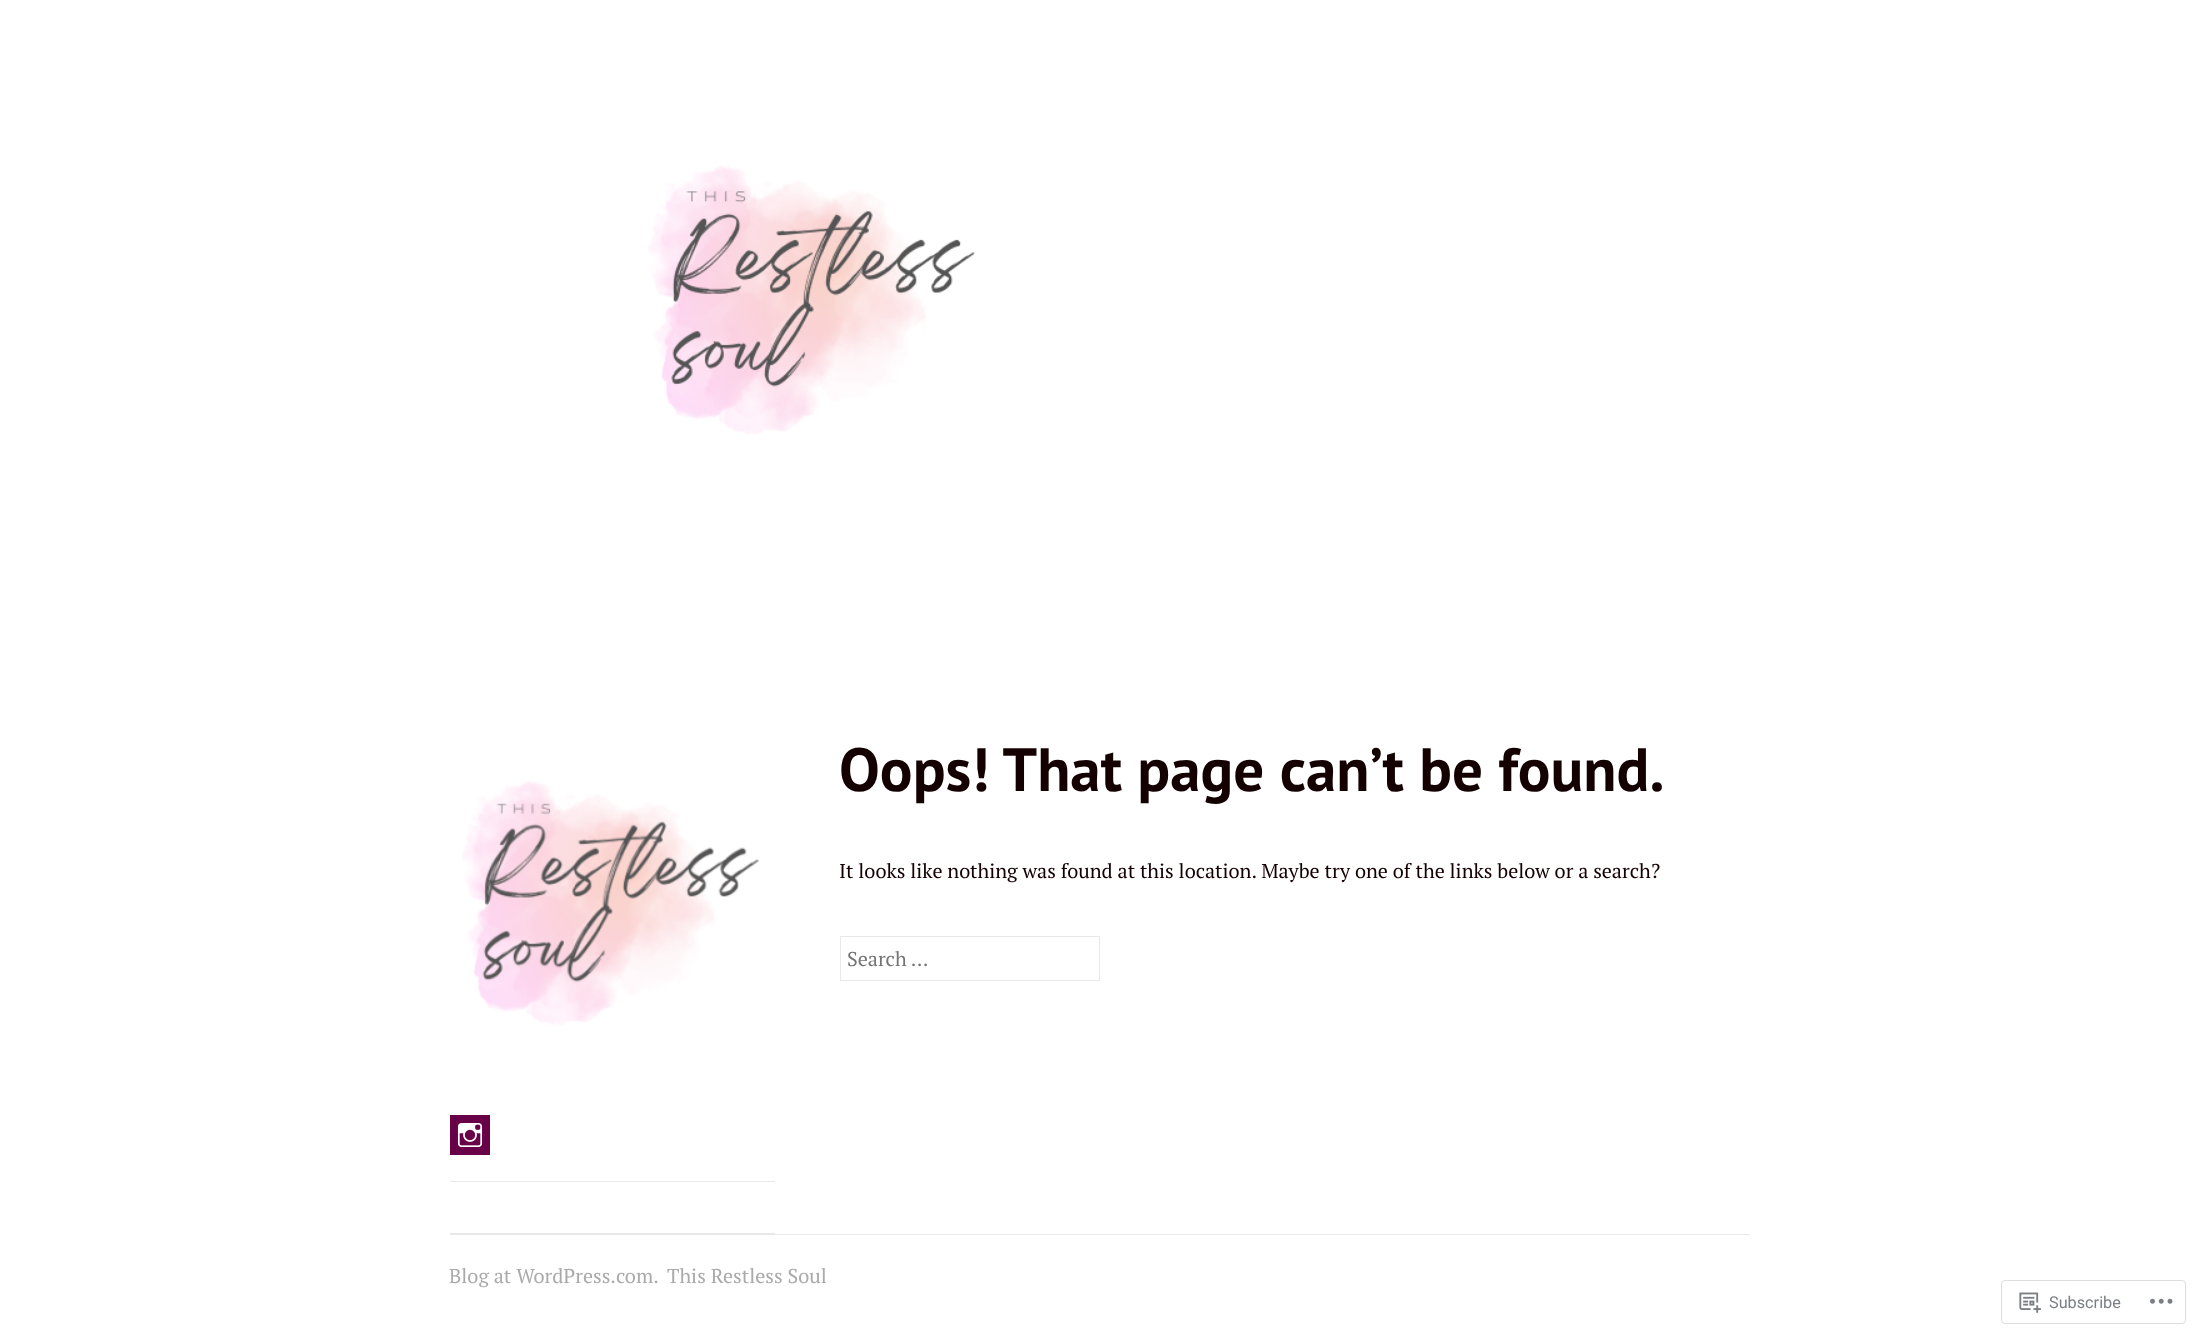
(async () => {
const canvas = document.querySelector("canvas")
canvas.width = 2198
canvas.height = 1336
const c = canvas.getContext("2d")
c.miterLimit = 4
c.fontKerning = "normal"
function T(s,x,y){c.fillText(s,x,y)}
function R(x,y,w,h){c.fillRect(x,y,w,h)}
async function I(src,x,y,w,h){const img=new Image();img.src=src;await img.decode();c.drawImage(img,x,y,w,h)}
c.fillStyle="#fff"
R(0,0,2198,1336)
await I("1.png",648,165,327,270)
c.fillStyle="#e8e8e8"
R(450,1233,325,1)
await I("2.png",462,781,298,245)
c.fillStyle="#680148"
R(450,1115,40,40)
await I("3.png",457,1123,26,24)
c.fillStyle="#e8e8e8"
R(450,1181,325,1)
c.font="bold 61px PT Sans"
c.fillStyle="#140000"
T("Oops! That page can’t be found.",839,791)
c.font="20px PT Serif"
T("It looks like nothing was found at this location. Maybe try one of the links below or a search?",839,878)
c.strokeStyle="#e8e8e8"
c.strokeRect(840.5,936.5,259,44)
c.fillStyle="#757575"
T("Search …",847,966)
c.fillStyle="#e8e8e8"
R(450,1234,1300,1)
c.fillStyle="#aaa"
T("Blog at WordPress.com.",449,1283)
T("This Restless Soul",667,1283)
c.beginPath()
c.roundRect(2001.5,1280.5,184,43,3.5)
c.strokeStyle="#dddddf"
c.stroke()
await I("4.png",2019,1292,22,21)
c.font="16.25px Roboto"
c.fillStyle="#7b7f85"
T("Subscribe",2049,1308)
await I("5.png",2150,1298,23,6)
})()
